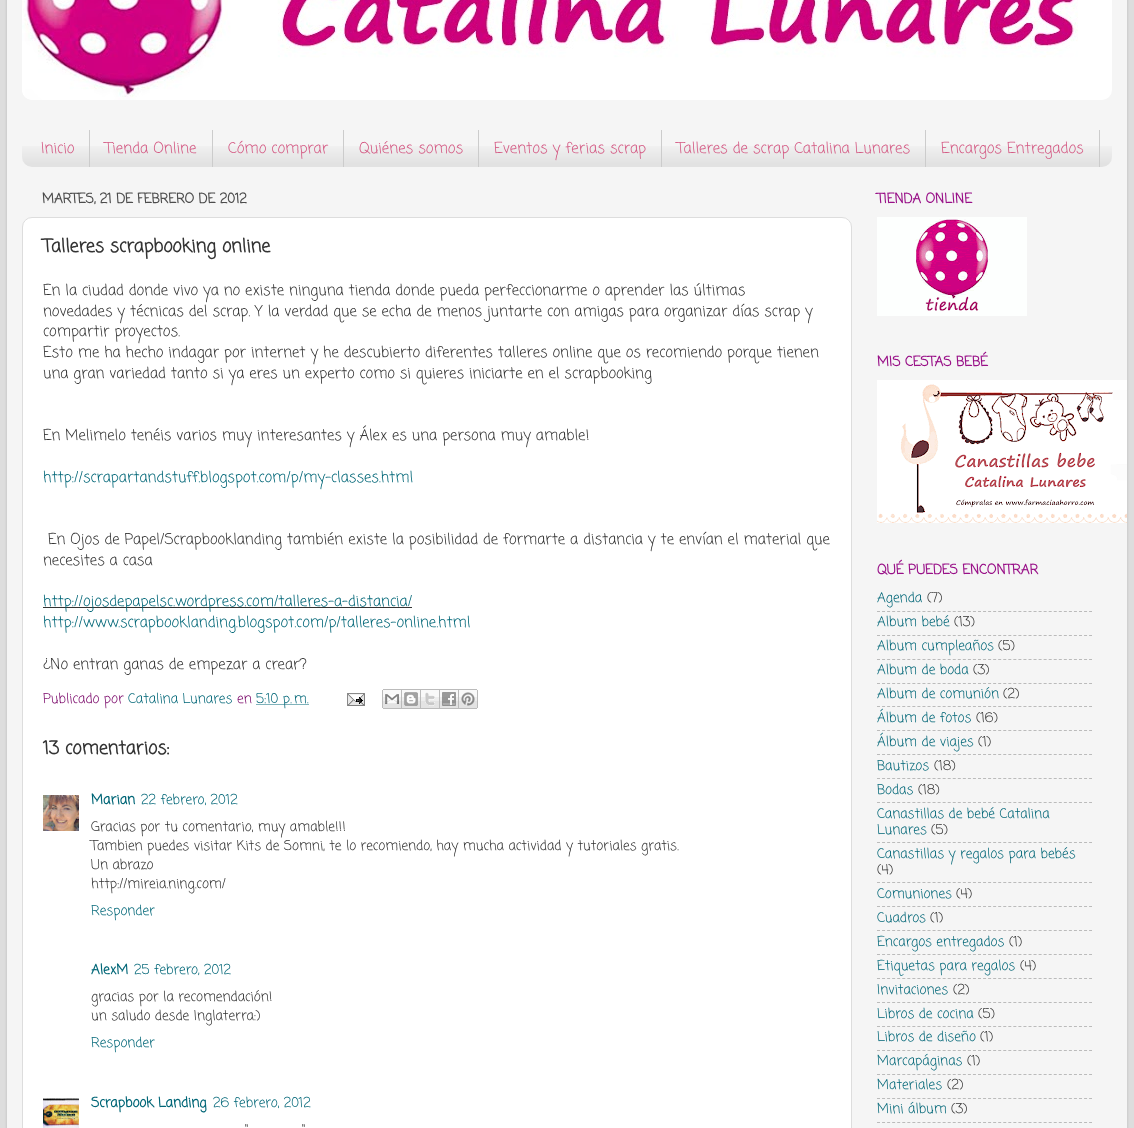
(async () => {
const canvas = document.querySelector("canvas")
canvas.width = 1134
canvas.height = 1128
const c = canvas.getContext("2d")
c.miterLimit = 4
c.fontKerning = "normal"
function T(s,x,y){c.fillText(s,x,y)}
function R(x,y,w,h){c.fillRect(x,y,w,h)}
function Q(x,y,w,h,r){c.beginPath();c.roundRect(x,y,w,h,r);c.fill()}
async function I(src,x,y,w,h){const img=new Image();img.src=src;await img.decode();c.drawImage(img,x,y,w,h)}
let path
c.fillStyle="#ddd"
R(0,0,1134,1128)
c.fillStyle="#00000026"
c.filter="blur(1.5px)"
c.beginPath()
c.roundRect(7,-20,1120,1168,15)
c.fill()
c.filter="none"
c.fillStyle="#f5f5f5"
R(7,0,1120,1128)
c.fillStyle="#fff"
Q(22,-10,1090,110,10)
await I("1.png",22,0,1056,100)
await I("2.png",22,146,1090,21)
c.fillStyle="#ccc"
R(89,130,1,37)
c.font="15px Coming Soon"
c.fillStyle="#d45a84"
T("Inicio",41,153)
c.fillStyle="#ccc"
R(212,130,1,37)
c.fillStyle="#d45a84"
T("Tienda Online",105,153)
c.fillStyle="#ccc"
R(343,130,1,37)
c.fillStyle="#d45a84"
T("Cómo comprar",228,153)
c.fillStyle="#ccc"
R(478,130,1,37)
c.fillStyle="#d45a84"
T("Quiénes somos",359,153)
c.fillStyle="#ccc"
R(661,130,1,37)
c.fillStyle="#d45a84"
T("Eventos y ferias scrap",494,153)
c.fillStyle="#ccc"
R(925,130,1,37)
c.fillStyle="#d45a84"
T("Talleres de scrap Catalina Lunares",677,153)
c.fillStyle="#ccc"
R(1099,130,1,37)
c.fillStyle="#d45a84"
T("Encargos Entregados",941,153)
c.font="bold 13.5px Coming Soon"
c.fillStyle="#4c4c4c"
T("MARTES, 21 DE FEBRERO DE 2012",42,203)
c.fillStyle="#fff"
c.beginPath()
c.roundRect(22.5,217.5,829,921,9.5)
c.fill()
c.strokeStyle="#ddd"
c.stroke()
c.font="bold 18px Coming Soon"
c.fillStyle="#333"
T("Talleres scrapbooking online",43,252)
c.font="14.85px Coming Soon"
T("En la ciudad donde vivo ya no existe ninguna tienda donde pueda perfeccionarme o aprender las últimas",43,295)
T("novedades y técnicas del scrap. Y la verdad que se echa de menos juntarte con amigas para organizar días scrap y",43,316)
T("compartir proyectos.",43,336)
T("Esto me ha hecho indagar por internet y he descubierto diferentes talleres online que os recomiendo porque tienen",43,357)
T("una gran variedad tanto si ya eres un experto como si quieres iniciarte en el scrapbooking",43,378)
T("En Melimelo tenéis varios muy interesantes y Álex es una persona muy amable!",43,440)
c.fillStyle="#067"
T("http://scrapartandstuff.blogspot.com/p/my-classes.html",43,482)
c.fillStyle="#333"
T("En Ojos de Papel/Scrapbooklanding también existe la posibilidad de formarte a distancia y te envían el material que",48,544)
T("necesites a casa",43,565)
R(43,607,369,1)
c.fillStyle="#067"
T("http://ojosdepapelsc.wordpress.com/talleres-a-distancia/",43,606)
T("http://www.scrapbooklanding.blogspot.com/p/talleres-online.html",43,627)
c.fillStyle="#333"
T("¿No entran ganas de empezar a crear?",43,669)
c.font="13.5px Coming Soon"
c.fillStyle="#706"
T("Publicado por",43,703)
c.fillStyle="#067"
T("Catalina Lunares",128,703)
c.fillStyle="#706"
T("en",237,703)
path = new Path2D("M256.5 704.5h52.5")
c.strokeStyle="#067"
c.setLineDash([1,1])
c.stroke(path)
c.fillStyle="#067"
T("5:10 p. m.",256,703)
await I("3.png",347,693,18,13)
await I("4.png",382,689,20,20)
await I("5.png",402,689,19,20)
await I("6.png",421,689,19,20)
await I("7.png",440,689,19,20)
await I("8.png",459,689,19,20)
c.font="bold 18px Coming Soon"
c.fillStyle="#333"
T("13 comentarios:",43,754)
await I("9.png",43,795,36,36)
c.font="bold 13.5px Coming Soon"
c.fillStyle="#067"
T("Marian",91,804)
c.font="13.5px Coming Soon"
T("22 febrero, 2012",141,804)
c.fillStyle="#333"
T("Gracias por tu comentario, muy amable!!!",91,831)
T("Tambien puedes visitar Kits de Somni, te lo recomiendo, hay mucha actividad y tutoriales gratis.",91,850)
T("Un abrazo",91,869)
T("http://mireia.ning.com/",91,888)
c.fillStyle="#067"
T("Responder",91,915)
c.font="bold 13.5px Coming Soon"
T("AlexM",91,974)
c.font="13.5px Coming Soon"
T("25 febrero, 2012",134,974)
c.fillStyle="#333"
T("gracias por la recomendación!",91,1001)
T("un saludo desde Inglaterra:)",91,1020)
c.fillStyle="#067"
T("Responder",91,1047)
await I("10.png",43,1098,36,30)
c.font="bold 13.5px Coming Soon"
T("Scrapbook Landing",91,1107)
c.font="13.5px Coming Soon"
T("26 febrero, 2012",213,1107)
c.fillStyle="#333"
T("\"",245,1134)
T("\"",302,1134)
c.font="bold 13.5px Coming Soon"
c.fillStyle="#918"
T("TIENDA ONLINE",877,203)
await I("11.png",877,217,150,99)
T("MIS CESTAS BEBÉ",877,366)
await I("12.png",877,380,250,143)
T("QUÉ PUEDES ENCONTRAR",877,574)
c.font="13.5px Coming Soon"
c.fillStyle="#067"
T("Agenda",877,602)
c.fillStyle="#333"
T("(7)",927,602)
path = new Path2D("M877 611.5h215")
c.strokeStyle="#bbb"
c.setLineDash([3,2.05])
c.stroke(path)
c.fillStyle="#067"
T("Album bebé",877,626)
c.fillStyle="#333"
T("(13)",954,626)
path = new Path2D("M877 635.5h215")
c.stroke(path)
c.fillStyle="#067"
T("Album cumpleaños",877,650)
c.fillStyle="#333"
T("(5)",998,650)
path = new Path2D("M877 659.5h215")
c.stroke(path)
c.fillStyle="#067"
T("Album de boda",877,674)
c.fillStyle="#333"
T("(3)",973,674)
path = new Path2D("M877 683.5h215")
c.stroke(path)
c.fillStyle="#067"
T("Album de comunión",877,698)
c.fillStyle="#333"
T("(2)",1003,698)
path = new Path2D("M877 706.5h215")
c.stroke(path)
c.fillStyle="#067"
T("Álbum de fotos",877,722)
c.fillStyle="#333"
T("(16)",976,722)
path = new Path2D("M877 730.5h215")
c.stroke(path)
c.fillStyle="#067"
T("Álbum de viajes",877,746)
c.fillStyle="#333"
T("(1)",978,746)
path = new Path2D("M877 754.5h215")
c.stroke(path)
c.fillStyle="#067"
T("Bautizos",877,770)
c.fillStyle="#333"
T("(18)",934,770)
path = new Path2D("M877 778.5h215")
c.stroke(path)
c.fillStyle="#067"
T("Bodas",877,794)
c.fillStyle="#333"
T("(18)",918,794)
path = new Path2D("M877 802.5h215")
c.stroke(path)
c.fillStyle="#067"
T("Canastillas de bebé Catalina",877,818)
T("Lunares",877,834)
c.fillStyle="#333"
T("(5)",931,834)
path = new Path2D("M877 842.5h215")
c.stroke(path)
c.fillStyle="#067"
T("Canastillas y regalos para bebés",877,858)
c.fillStyle="#333"
T("(4)",877,874)
path = new Path2D("M877 882.5h215")
c.stroke(path)
c.fillStyle="#067"
T("Comuniones",877,898)
c.fillStyle="#333"
T("(4)",956,898)
path = new Path2D("M877 906.5h215")
c.stroke(path)
c.fillStyle="#067"
T("Cuadros",877,922)
c.fillStyle="#333"
T("(1)",930,922)
path = new Path2D("M877 930.5h215")
c.stroke(path)
c.fillStyle="#067"
T("Encargos entregados",877,946)
c.fillStyle="#333"
T("(1)",1009,946)
path = new Path2D("M877 954.5h215")
c.stroke(path)
c.fillStyle="#067"
T("Etiquetas para regalos",877,970)
c.fillStyle="#333"
T("(4)",1020,970)
path = new Path2D("M877 978.5h215")
c.stroke(path)
c.fillStyle="#067"
T("Invitaciones",877,994)
c.fillStyle="#333"
T("(2)",953,994)
path = new Path2D("M877 1002.5h215")
c.stroke(path)
c.fillStyle="#067"
T("Libros de cocina",877,1018)
c.fillStyle="#333"
T("(5)",978,1018)
path = new Path2D("M877 1026.5h215")
c.stroke(path)
c.fillStyle="#067"
T("Libros de diseño",877,1041)
c.fillStyle="#333"
T("(1)",980,1041)
path = new Path2D("M877 1050.5h215")
c.stroke(path)
c.fillStyle="#067"
T("Marcapáginas",877,1065)
c.fillStyle="#333"
T("(1)",967,1065)
path = new Path2D("M877 1074.5h215")
c.stroke(path)
c.fillStyle="#067"
T("Materiales",877,1089)
c.fillStyle="#333"
T("(2)",947,1089)
path = new Path2D("M877 1098.5h215")
c.stroke(path)
c.fillStyle="#067"
T("Mini álbum",877,1113)
c.fillStyle="#333"
T("(3)",951,1113)
path = new Path2D("M877 1122.5h215")
c.stroke(path)
})()
